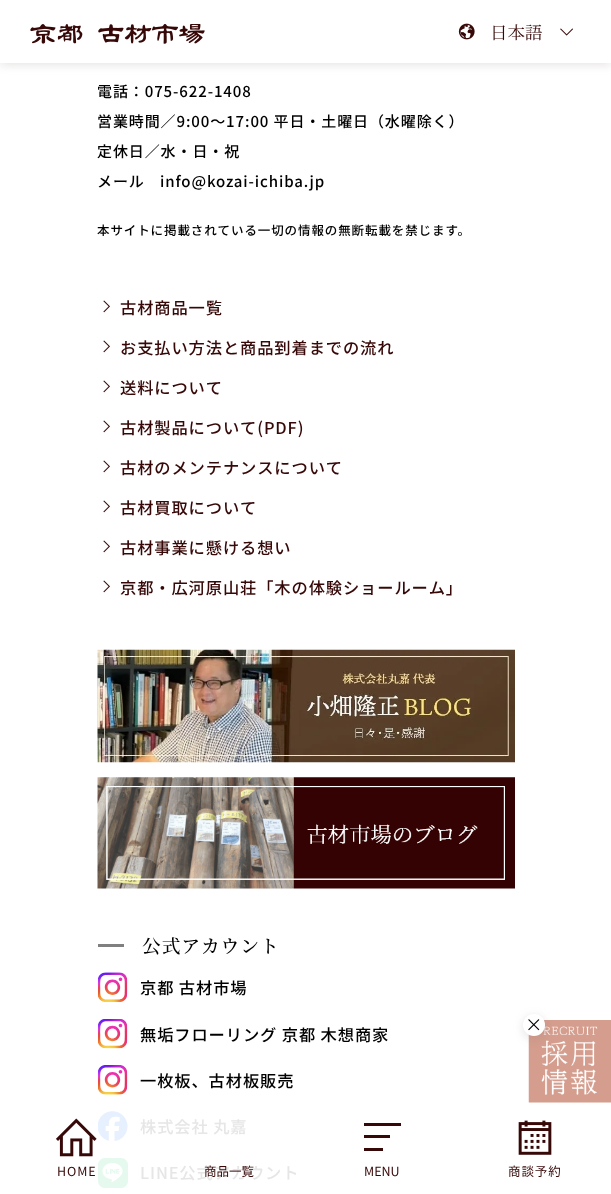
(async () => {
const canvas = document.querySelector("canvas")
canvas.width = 611
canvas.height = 1194
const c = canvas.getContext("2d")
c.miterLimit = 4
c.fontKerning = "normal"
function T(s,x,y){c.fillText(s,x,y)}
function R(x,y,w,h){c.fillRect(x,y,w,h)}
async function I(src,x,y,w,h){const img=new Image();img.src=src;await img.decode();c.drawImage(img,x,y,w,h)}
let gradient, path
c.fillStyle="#fff"
R(0,0,611,1194)
c.save()
path = new Path2D("M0 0h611v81h-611zm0 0h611v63h-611z")
c.clip(path,"evenodd")
c.fillStyle="#89727233"
c.filter="blur(5px)"
c.beginPath()
c.rect(0,3,611,62)
c.fill()
c.filter="none"
c.restore()
c.fillStyle="#ffffffe6"
R(0,62,611,1)
await I("1.png",30,24,175,20)
await I("2.png",458,23,17,17)
c.font="17.5px Noto Serif JP"
c.fillStyle="#370808"
T("日本語",490,39)
await I("3.png",560,28,13,8)
await I("4.png",56,1118,41,39)
c.letterSpacing="0.9px"
c.font="12.5px Noto Sans JP"
T("HOME",57,1176)
c.font="500 16.25px Noto Sans JP"
c.fillStyle="#e6e6e6"
T("LINE公式アカウント",140,1179)
c.letterSpacing="0px"
c.font="12.5px Noto Sans JP"
c.fillStyle="#370808"
T("商品一覧",204,1176)
gradient = c.createLinearGradient(364,1136,401,1136)
gradient.addColorStop(0,"#370808")
gradient.addColorStop(.7,"#370808")
gradient.addColorStop(.7,"#fff")
gradient.addColorStop(1,"#fff")
c.fillStyle = gradient
R(364,1135,26,3)
c.fillStyle="#370808"
R(364,1123,37,3)
gradient = c.createLinearGradient(364,1149,401,1149)
gradient.addColorStop(0,"#370808")
gradient.addColorStop(.5,"#370808")
gradient.addColorStop(.5,"#fff")
gradient.addColorStop(1,"#fff")
c.fillStyle = gradient
R(364,1148,19,3)
c.fillStyle="#370808"
T("MENU",364,1176)
await I("5.png",518,1120,34,35)
c.letterSpacing="0.9px"
T("商談予約",508,1176)
c.font="500 15px Noto Sans JP"
c.fillStyle="#000"
T("電話：075-622-1408",97,97)
T("営業時間／9:00～17:00 平日・土曜日（水曜除く）",97,127)
T("定休日／水・日・祝",97,157)
T("メール",97,187)
T("info@kozai-ichiba.jp",160,187)
c.font="500 12.5px Noto Sans JP"
T("本サイトに掲載されている一切の情報の無断転載を禁じます。",97,235)
await I("6.png",103,300,7,13)
c.font="500 16.25px Noto Sans JP"
c.fillStyle="#370808"
T("古材商品一覧",120,314)
await I("6.png",103,340,7,13)
T("お支払い方法と商品到着までの流れ",120,354)
await I("6.png",103,380,7,13)
T("送料について",120,394)
await I("6.png",103,420,7,13)
T("古材製品について(PDF)",120,434)
await I("6.png",103,460,7,13)
T("古材のメンテナンスについて",120,474)
await I("6.png",103,500,7,13)
T("古材買取について",120,514)
await I("6.png",103,540,7,13)
T("古材事業に懸ける想い",120,554)
await I("6.png",103,580,7,13)
T("京都・広河原山荘「木の体験ショールーム」",120,594)
await I("7.png",97,649,418,114)
await I("8.png",97,777,418,112)
c.fillStyle="#808080"
R(98,944,26,3)
c.font="500 18.75px Noto Serif JP"
c.fillStyle="#000"
T("公式アカウント",142,953)
await I("9.png",98,972,30,30)
c.font="500 16.25px Noto Sans JP"
T("京都 古材市場",140,994)
await I("10.png",98,1019,30,30)
T("無垢フローリング 京都 木想商家",140,1041)
await I("11.png",98,1065,30,30)
T("一枚板、古材板販売",140,1087)
await I("12.png",98,1111,30,30)
c.fillStyle="#e6e6e6"
T("株式会社 丸嘉",140,1133)
await I("13.png",98,1158,30,30)
await I("15.png",528,1020,83,83)
c.fillStyle="#89727233"
c.filter="blur(5px)"
c.beginPath()
c.roundRect(523,1016,22,23,11)
c.fill()
c.filter="none"
c.fillStyle="#fff"
c.beginPath()
c.arc(534,1025,11,0,7)
c.fill()
await I("14.png",528,1019,12,12)
})()
